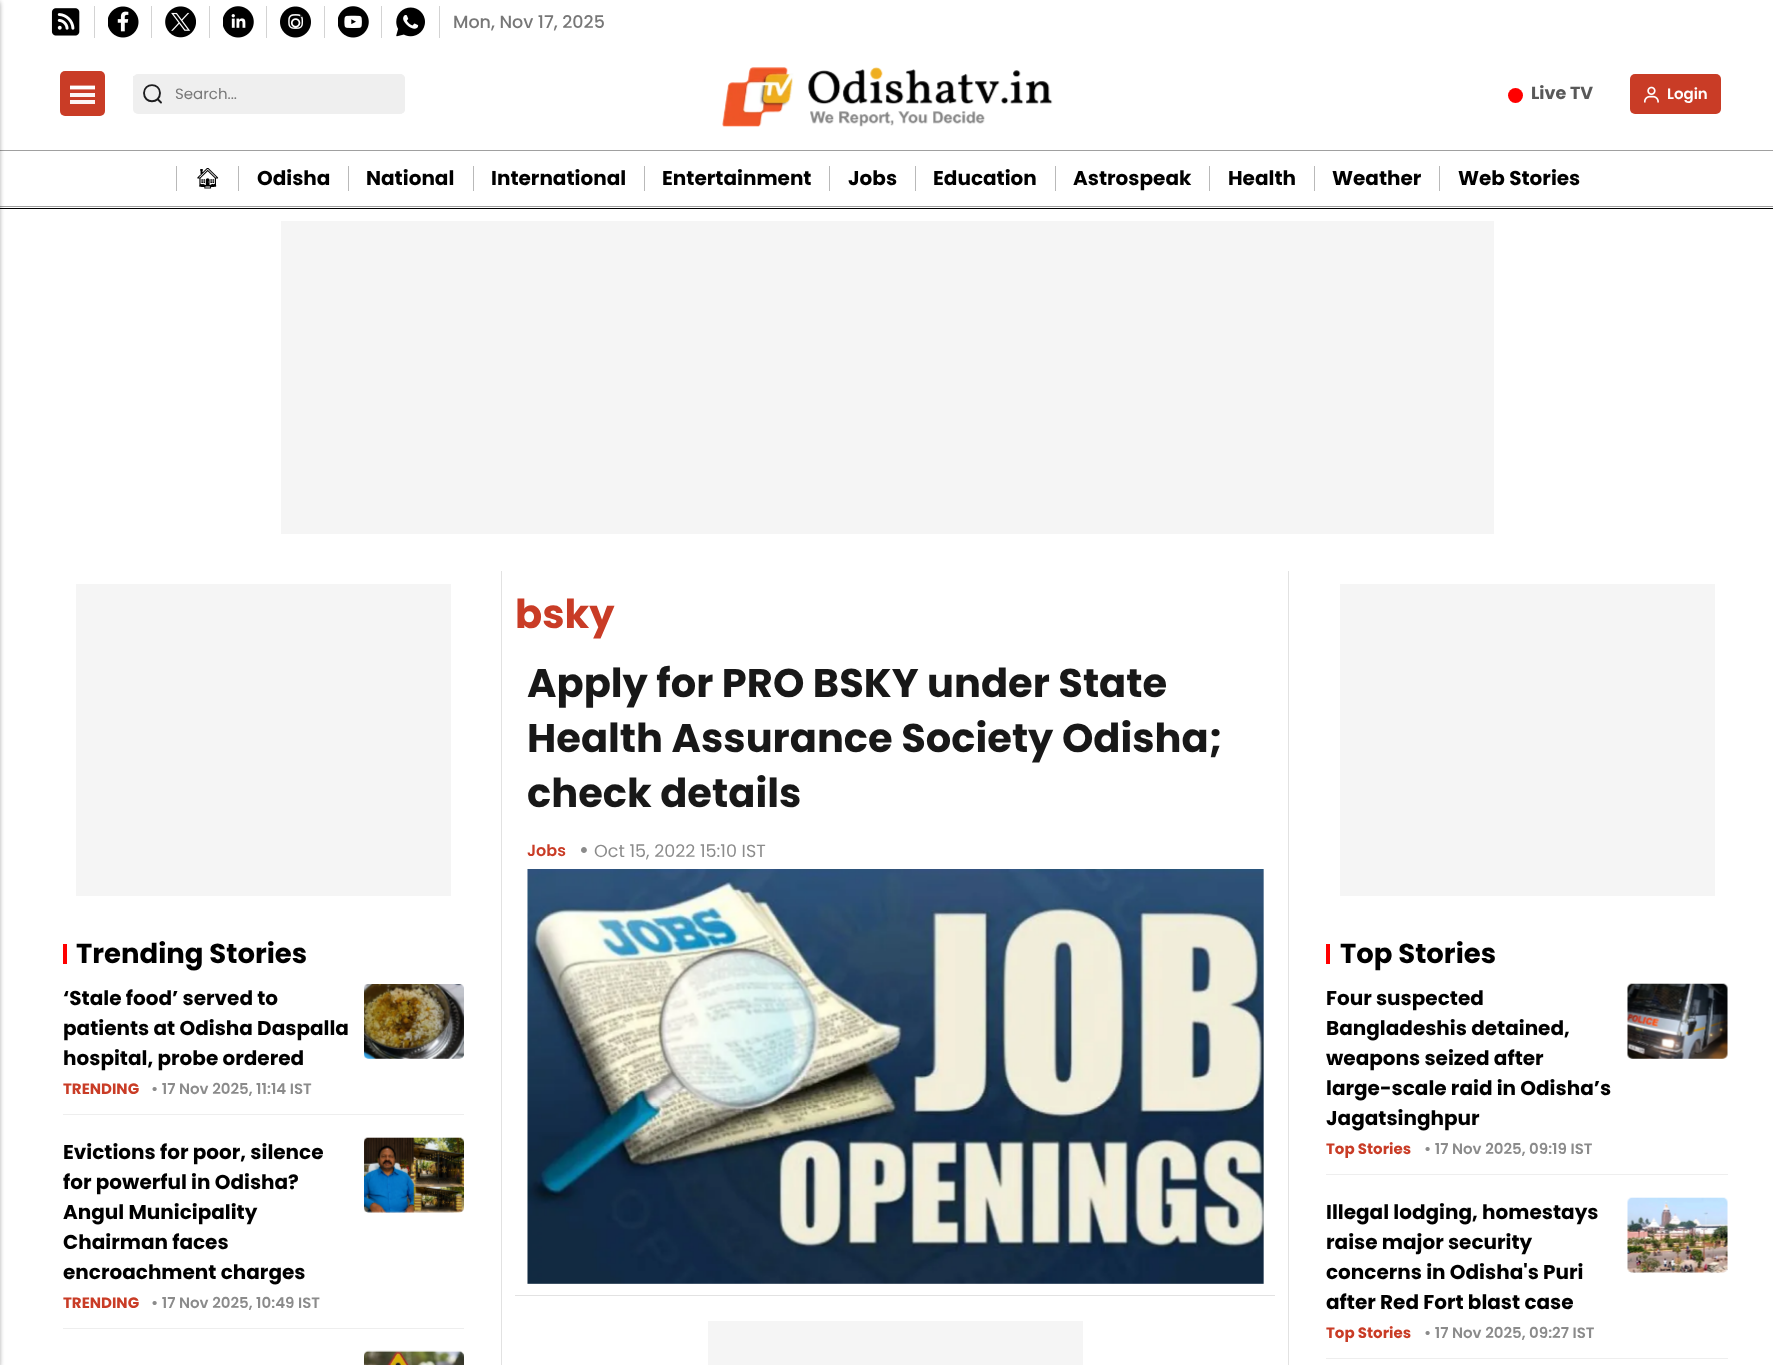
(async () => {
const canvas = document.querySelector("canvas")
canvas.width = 1773
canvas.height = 1365
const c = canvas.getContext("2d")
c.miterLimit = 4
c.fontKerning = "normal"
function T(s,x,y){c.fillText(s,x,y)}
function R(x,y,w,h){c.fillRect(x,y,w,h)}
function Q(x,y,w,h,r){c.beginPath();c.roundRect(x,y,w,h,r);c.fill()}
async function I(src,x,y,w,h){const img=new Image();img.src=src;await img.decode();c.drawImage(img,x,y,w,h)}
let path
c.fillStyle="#fff"
R(0,0,1773,1365)
c.fillStyle="#000"
R(0,208,1773,1)
c.fillStyle="#a0a0a0"
R(0,150,1773,1)
R(0,206,1773,1)
c.fillStyle="#00000038"
c.filter="blur(2px)"
c.beginPath()
c.rect(-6,3,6,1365)
c.fill()
c.filter="none"
c.fillStyle="#0000001f"
c.filter="blur(2px)"
c.beginPath()
c.rect(-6,0,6,1365)
c.fill()
c.filter="none"
c.fillStyle="#d3d3d3"
R(94,6,1,32)
await I("1.png",51,8,29,28)
R(151,6,1,32)
await I("2.png",108,6,31,32)
R(209,6,1,32)
await I("3.png",165,6,31,32)
R(266,6,1,32)
await I("4.png",223,6,31,32)
R(324,6,1,32)
await I("5.png",280,6,31,32)
R(381,6,1,32)
await I("6.png",338,6,31,32)
R(439,6,1,32)
await I("7.png",396,7,29,30)
c.font="500 17.5px Poppins"
c.fillStyle="#777"
T("Mon, Nov 17, 2025",453,28)
c.fillStyle="#c93c26"
Q(60,71,45,45,5)
path = new Path2D("M70 87.5h25")
c.strokeStyle="#fff"
c.lineWidth=3.8
c.stroke(path)
c.fillStyle="#fcf5f4"
R(70,93,25,4)
R(70,100,25,4)
c.fillStyle="#efefef"
Q(133,74,272,40,5)
R(133,76,1,2)
path = new Path2D("M157.5 99l3.5 3.5m-1-9.5c0 11-16 11-16 0c0-10.5 16-10.5 16 0z")
c.strokeStyle="#1d1d1f"
c.lineWidth=1.9
c.lineCap="round"
c.stroke(path)
Q(173,74,232,40,5)
c.font="15px Poppins"
c.fillStyle="#777"
T("Search...",175,99)
await I("8.png",722,67,331,60)
c.fillStyle="#f00"
c.beginPath()
c.arc(1515.5,95.5,7.5,0,7)
c.fill()
c.font="bold 17.5px Poppins"
c.fillStyle="#595959"
T("Live TV",1531,99)
c.fillStyle="#c93c26"
Q(1630,74,91,40,5)
await I("9.png",1644,86,15,17)
c.font="600 15px Poppins"
c.fillStyle="#fff"
T("Login",1667,99)
c.fillStyle="#b9b9b9"
R(176,166,1,25)
c.font="bold 20px Noto Emoji"
c.fillStyle="#000"
T("🏠︎",195,185)
c.fillStyle="#b9b9b9"
R(238,166,1,25)
c.font="bold 20px Poppins"
c.fillStyle="#000"
T("Odisha",257,185)
c.fillStyle="#b9b9b9"
R(348,166,1,25)
c.fillStyle="#000"
T("National",366,185)
c.fillStyle="#b9b9b9"
R(473,166,1,25)
c.fillStyle="#000"
T("International",491,185)
c.fillStyle="#b9b9b9"
R(644,166,1,25)
c.fillStyle="#000"
T("Entertainment",662,185)
c.fillStyle="#b9b9b9"
R(829,166,1,25)
c.fillStyle="#000"
T("Jobs",848,185)
c.fillStyle="#b9b9b9"
R(915,166,1,25)
c.fillStyle="#000"
T("Education",933,185)
c.fillStyle="#b9b9b9"
R(1055,166,1,25)
c.fillStyle="#000"
T("Astrospeak",1073,185)
c.fillStyle="#b9b9b9"
R(1209,166,1,25)
c.fillStyle="#000"
T("Health",1228,185)
c.fillStyle="#b9b9b9"
R(1314,166,1,25)
c.fillStyle="#000"
T("Weather",1332,185)
c.fillStyle="#b9b9b9"
R(1439,166,1,25)
c.fillStyle="#000"
T("Web Stories",1458,185)
c.fillStyle="#f5f5f5"
R(281,221,1213,313)
c.fillStyle="#e2e2e2"
R(1288,571,1,794)
R(501,571,1,794)
c.font="bold 40px Poppins"
c.fillStyle="#c93c26"
T("bsky",515,628)
c.fillStyle="#e2e2e2"
R(515,1295,760,1)
c.fillStyle="#181818"
T("Apply for PRO BSKY under State",527,697)
T("Health Assurance Society Odisha;",527,752)
T("check details",527,807)
c.font="600 16px Poppins"
c.fillStyle="#c93c26"
T("Jobs",527,856)
c.font="24px Poppins"
c.fillStyle="#8b8b8b"
T("•",579,858)
c.font="17.5px Poppins"
T("Oct 15, 2022 15:10 IST",594,857)
await I("10.png",527,869,737,415)
c.fillStyle="#f5f5f5"
R(708,1321,375,44)
R(76,584,375,312)
c.fillStyle="#f00"
R(63,944,4,20)
c.font="bold 27.5px Poppins"
c.fillStyle="#000"
T("Trending Stories",76,963)
c.fillStyle="#eee"
R(63,1114,401,1)
c.font="bold 20px Poppins"
c.fillStyle="#000"
T("‘Stale food’ served to",63,1005)
T("patients at Odisha Daspalla",63,1035)
T("hospital, probe ordered",63,1065)
c.save()
c.beginPath()
c.rect(63,909,401,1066)
c.clip()
c.font="bold 15px Poppins"
c.fillStyle="#c93c26"
T("TRENDING",63,1094)
c.restore()
c.font="600 15px Poppins"
c.fillStyle="#8b8b8b"
T("• 17 Nov 2025, 11:14 IST",151,1094)
await I("11.png",364,984,100,75)
c.fillStyle="#eee"
R(63,1328,401,1)
c.font="bold 20px Poppins"
c.fillStyle="#000"
T("Evictions for poor, silence",63,1159)
c.save()
c.beginPath()
c.rect(63,909,401,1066)
c.clip()
T("for powerful in Odisha?",63,1189)
c.restore()
T("Angul Municipality",63,1219)
T("Chairman faces",63,1249)
T("encroachment charges",63,1279)
c.save()
c.beginPath()
c.rect(63,909,401,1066)
c.clip()
c.font="bold 15px Poppins"
c.fillStyle="#c93c26"
T("TRENDING",63,1308)
c.restore()
c.font="600 15px Poppins"
c.fillStyle="#8b8b8b"
T("• 17 Nov 2025, 10:49 IST",151,1308)
await I("12.png",364,1137,100,76)
await I("13.png",364,1350,100,15)
c.fillStyle="#f5f5f5"
R(1340,584,375,312)
c.fillStyle="#f00"
R(1326,944,4,20)
c.font="bold 27.5px Poppins"
c.fillStyle="#000"
T("Top Stories",1340,963)
c.fillStyle="#eee"
R(1326,1174,402,1)
c.font="bold 20px Poppins"
c.fillStyle="#000"
T("Four suspected",1326,1005)
T("Bangladeshis detained,",1326,1035)
T("weapons seized after",1326,1065)
T("large-scale raid in Odisha’s",1326,1095)
T("Jagatsinghpur",1326,1125)
c.font="bold 15px Poppins"
c.fillStyle="#c93c26"
T("Top Stories",1326,1154)
c.font="600 15px Poppins"
c.fillStyle="#8b8b8b"
T("• 17 Nov 2025, 09:19 IST",1424,1154)
await I("14.png",1627,983,101,76)
c.fillStyle="#eee"
R(1326,1358,402,1)
c.font="bold 20px Poppins"
c.fillStyle="#000"
T("Illegal lodging, homestays",1326,1219)
T("raise major security",1326,1249)
T("concerns in Odisha's Puri",1326,1279)
T("after Red Fort blast case",1326,1309)
c.font="bold 15px Poppins"
c.fillStyle="#c93c26"
T("Top Stories",1326,1338)
c.font="600 15px Poppins"
c.fillStyle="#8b8b8b"
T("• 17 Nov 2025, 09:27 IST",1424,1338)
await I("15.png",1627,1197,101,76)
})()
